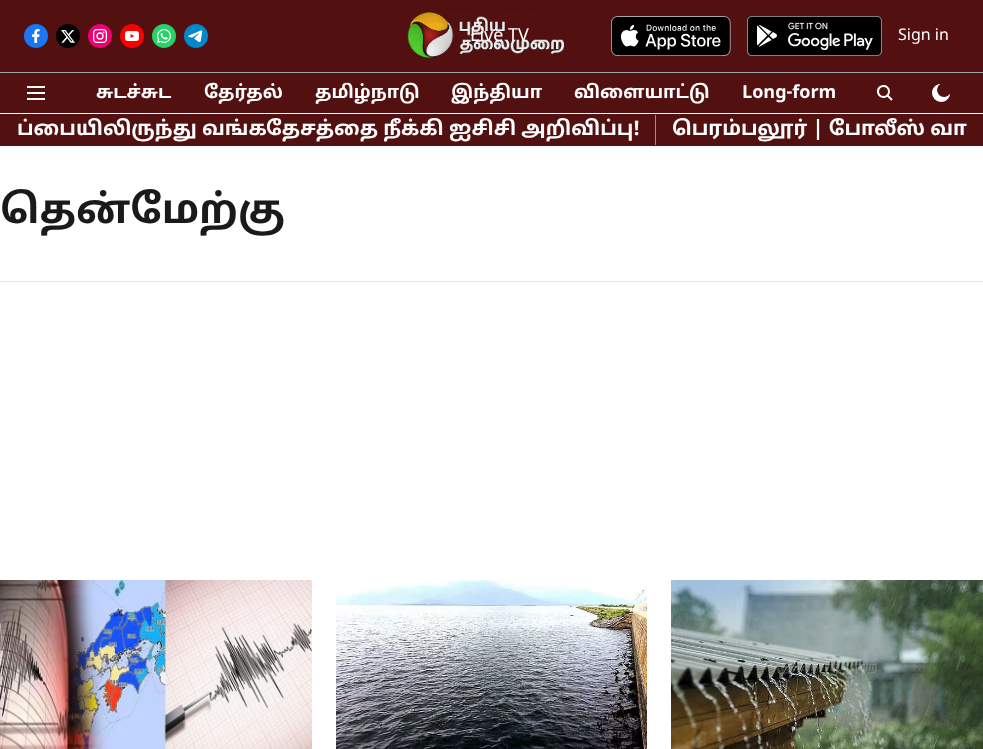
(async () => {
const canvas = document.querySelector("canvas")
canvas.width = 983
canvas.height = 749
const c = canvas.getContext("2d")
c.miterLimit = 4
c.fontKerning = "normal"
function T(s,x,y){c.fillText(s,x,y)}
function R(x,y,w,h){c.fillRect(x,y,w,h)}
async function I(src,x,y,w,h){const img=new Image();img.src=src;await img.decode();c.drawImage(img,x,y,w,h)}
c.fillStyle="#fff"
R(0,0,983,749)
c.fillStyle="#521010"
R(0,0,983,72)
c.fillStyle="#a4a4a4"
R(0,72,983,1)
await I("1.png",24,24,24,24)
await I("2.png",56,24,24,24)
await I("3.png",88,24,24,24)
await I("4.png",120,24,24,24)
await I("5.png",152,24,24,24)
await I("6.png",184,24,24,24)
await I("7.png",403,8,177,56)
await I("8.png",611,16,120,40)
await I("9.png",747,16,135,40)
c.font="18px Noto Sans Tamil"
c.fillStyle="#fff"
T("Live TV",470,41)
c.font="16px Noto Sans Tamil"
T("Sign in",898,40)
c.fillStyle="#521010"
R(0,73,983,40)
await I("10.png",27,86,18,14)
c.font="bold 18px Noto Sans Tamil"
c.fillStyle="#fff"
T("சுடச்சுட",96,98)
T("தேர்தல்",204,98)
T("தமிழ்நாடு",315,98)
T("இந்தியா",451,98)
T("விளையாட்டு",574,98)
T("Long-form",742,98)
await I("11.png",876,85,17,16)
await I("12.png",932,84,18,18)
c.fillStyle="#521010"
R(0,114,983,32)
c.font="bold 20px Noto Sans Tamil"
c.fillStyle="#fff"
T("ப்பையிலிருந்து வங்கதேசத்தை நீக்கி ஐசிசி அறிவிப்பு!",17,135)
c.fillStyle="#a98888"
R(655,115,1,30)
c.fillStyle="#fff"
T("பெரம்பலூர் | போலீஸ் வா",672,135)
c.fillStyle="#e6e6e6"
R(0,281,983,1)
c.font="bold 40px Noto Sans Tamil"
c.fillStyle="#1a1a1a"
T("தென்மேற்கு",0,223)
await I("13.png",0,580,312,169)
await I("14.png",336,580,311,169)
await I("15.png",671,580,312,169)
})()
